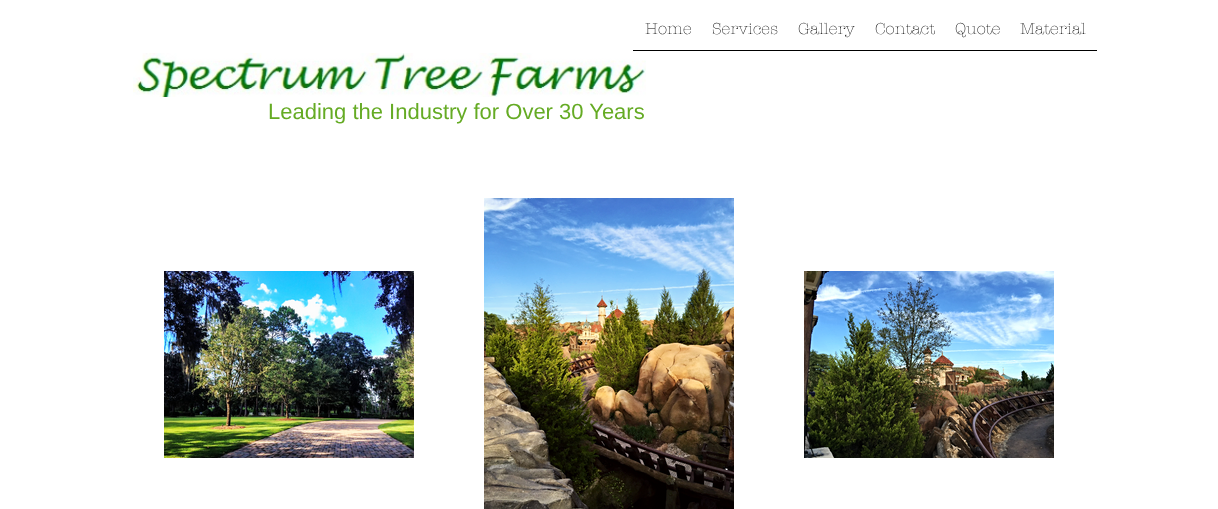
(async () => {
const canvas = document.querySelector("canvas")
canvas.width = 1218
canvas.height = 509
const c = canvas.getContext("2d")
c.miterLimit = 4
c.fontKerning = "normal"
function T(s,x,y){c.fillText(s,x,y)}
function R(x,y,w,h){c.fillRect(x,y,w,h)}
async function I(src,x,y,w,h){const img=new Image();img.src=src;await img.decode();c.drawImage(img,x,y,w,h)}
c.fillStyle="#fff"
R(0,0,1218,509)
c.font="300 16px 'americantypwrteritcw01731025'"
c.fillStyle="#000"
T("Home",645,34)
T("Services",712,34)
T("Gallery",798,34)
T("Contact",875,34)
T("Quote",955,34)
T("Material",1020,34)
R(633,50,464,1)
await I("1.png",133,53,513,44)
c.font="22px Liberation Sans"
c.fillStyle="#65ab24"
T("Leading the Industry for Over 30 Years",268,119)
await I("2.png",164,271,250,187)
await I("3.png",484,198,250,311)
await I("4.png",804,271,250,187)
})()
